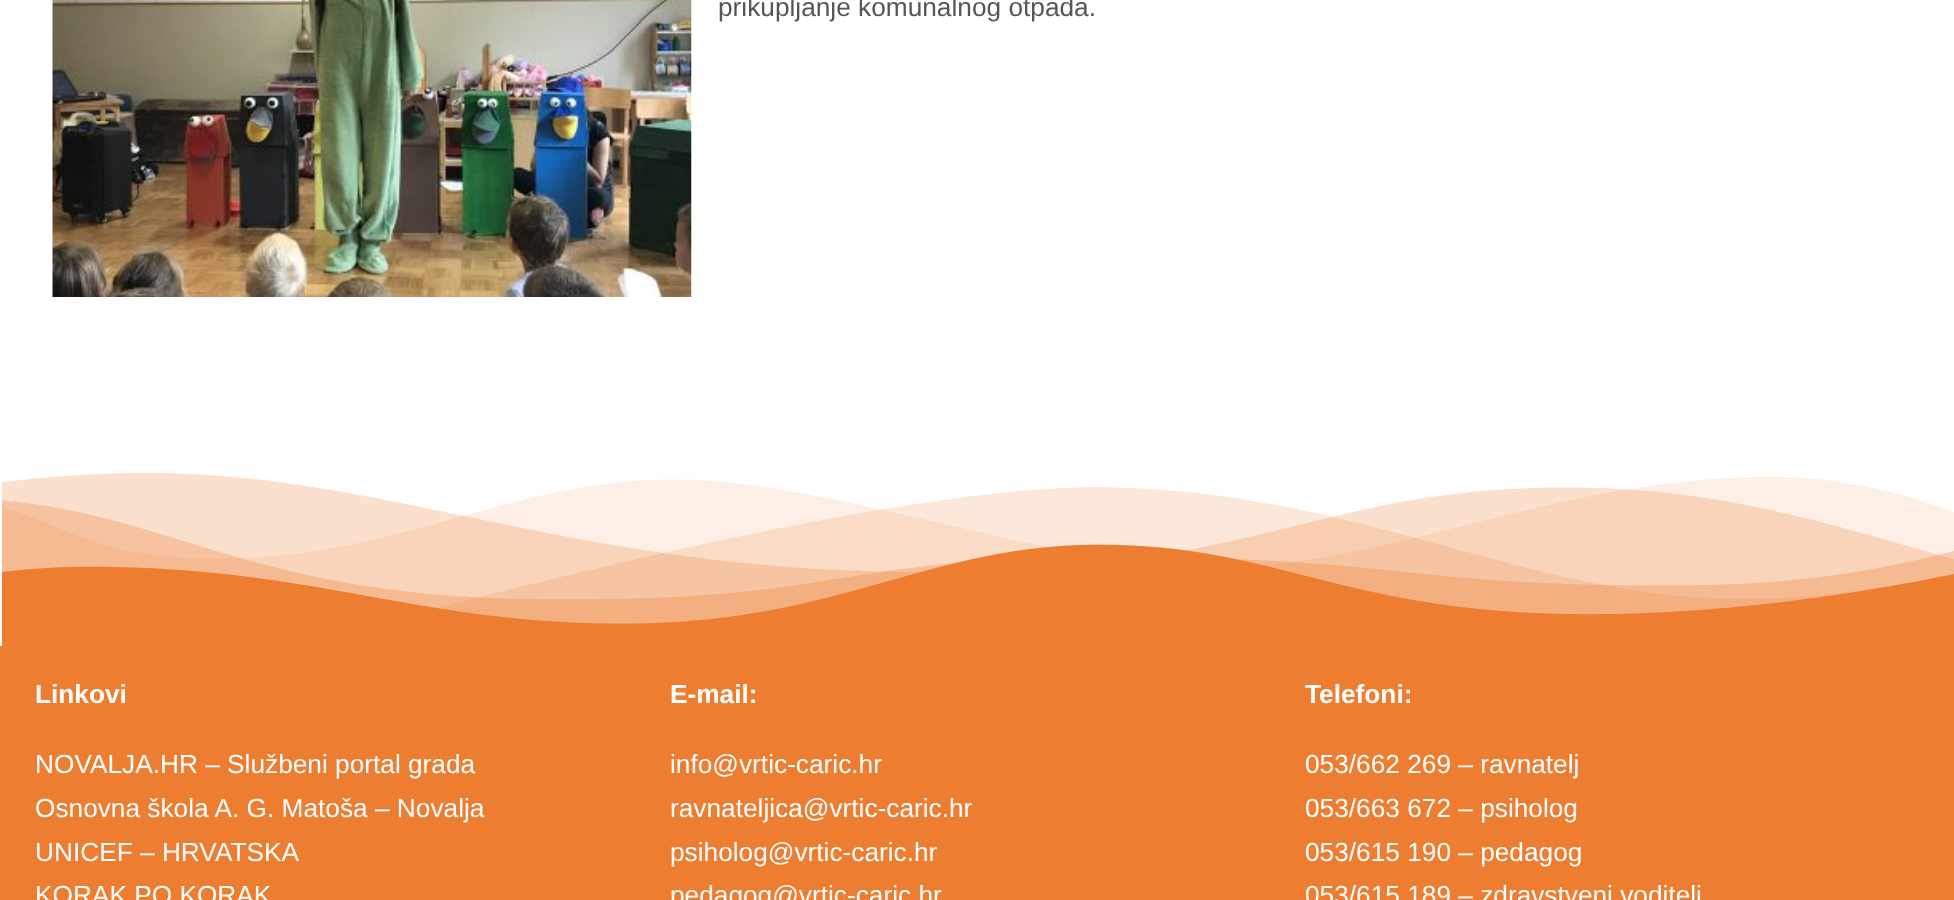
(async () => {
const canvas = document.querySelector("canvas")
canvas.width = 1954
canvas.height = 900
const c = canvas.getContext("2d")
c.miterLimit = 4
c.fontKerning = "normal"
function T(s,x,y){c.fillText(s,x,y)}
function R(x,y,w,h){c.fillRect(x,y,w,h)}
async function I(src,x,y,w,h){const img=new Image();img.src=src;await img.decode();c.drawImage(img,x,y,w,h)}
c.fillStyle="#fff"
R(0,0,1954,900)
await I("1.png",52,0,640,297)
c.font="26.25px Liberation Sans"
c.fillStyle="#565656"
T("prikupljanje komunalnog otpada.",718,16)
await I("2.png",2,473,1952,173)
c.fillStyle="#ed7d31"
R(0,646,1954,254)
c.font="bold 26.25px Liberation Sans"
c.fillStyle="#fff"
T("Linkovi",35,703)
c.font="26.25px Liberation Sans"
T("NOVALJA.HR – Službeni portal grada",35,773)
T("Osnovna škola A. G. Matoša – Novalja",35,817)
T("UNICEF – HRVATSKA",35,861)
T("KORAK PO KORAK",35,904)
c.font="bold 26.25px Liberation Sans"
T("E-mail:",670,703)
c.font="26.25px Liberation Sans"
T("info@vrtic-caric.hr",670,773)
T("ravnateljica@vrtic-caric.hr",670,817)
T("psiholog@vrtic-caric.hr",670,861)
T("pedagog@vrtic-caric.hr",670,904)
c.font="bold 26.25px Liberation Sans"
T("Telefoni:",1305,703)
c.font="26.25px Liberation Sans"
T("053/662 269 – ravnatelj",1305,773)
T("053/663 672 – psiholog",1305,817)
T("053/615 190 – pedagog",1305,861)
T("053/615 189 – zdravstveni voditelj",1305,904)
})()
